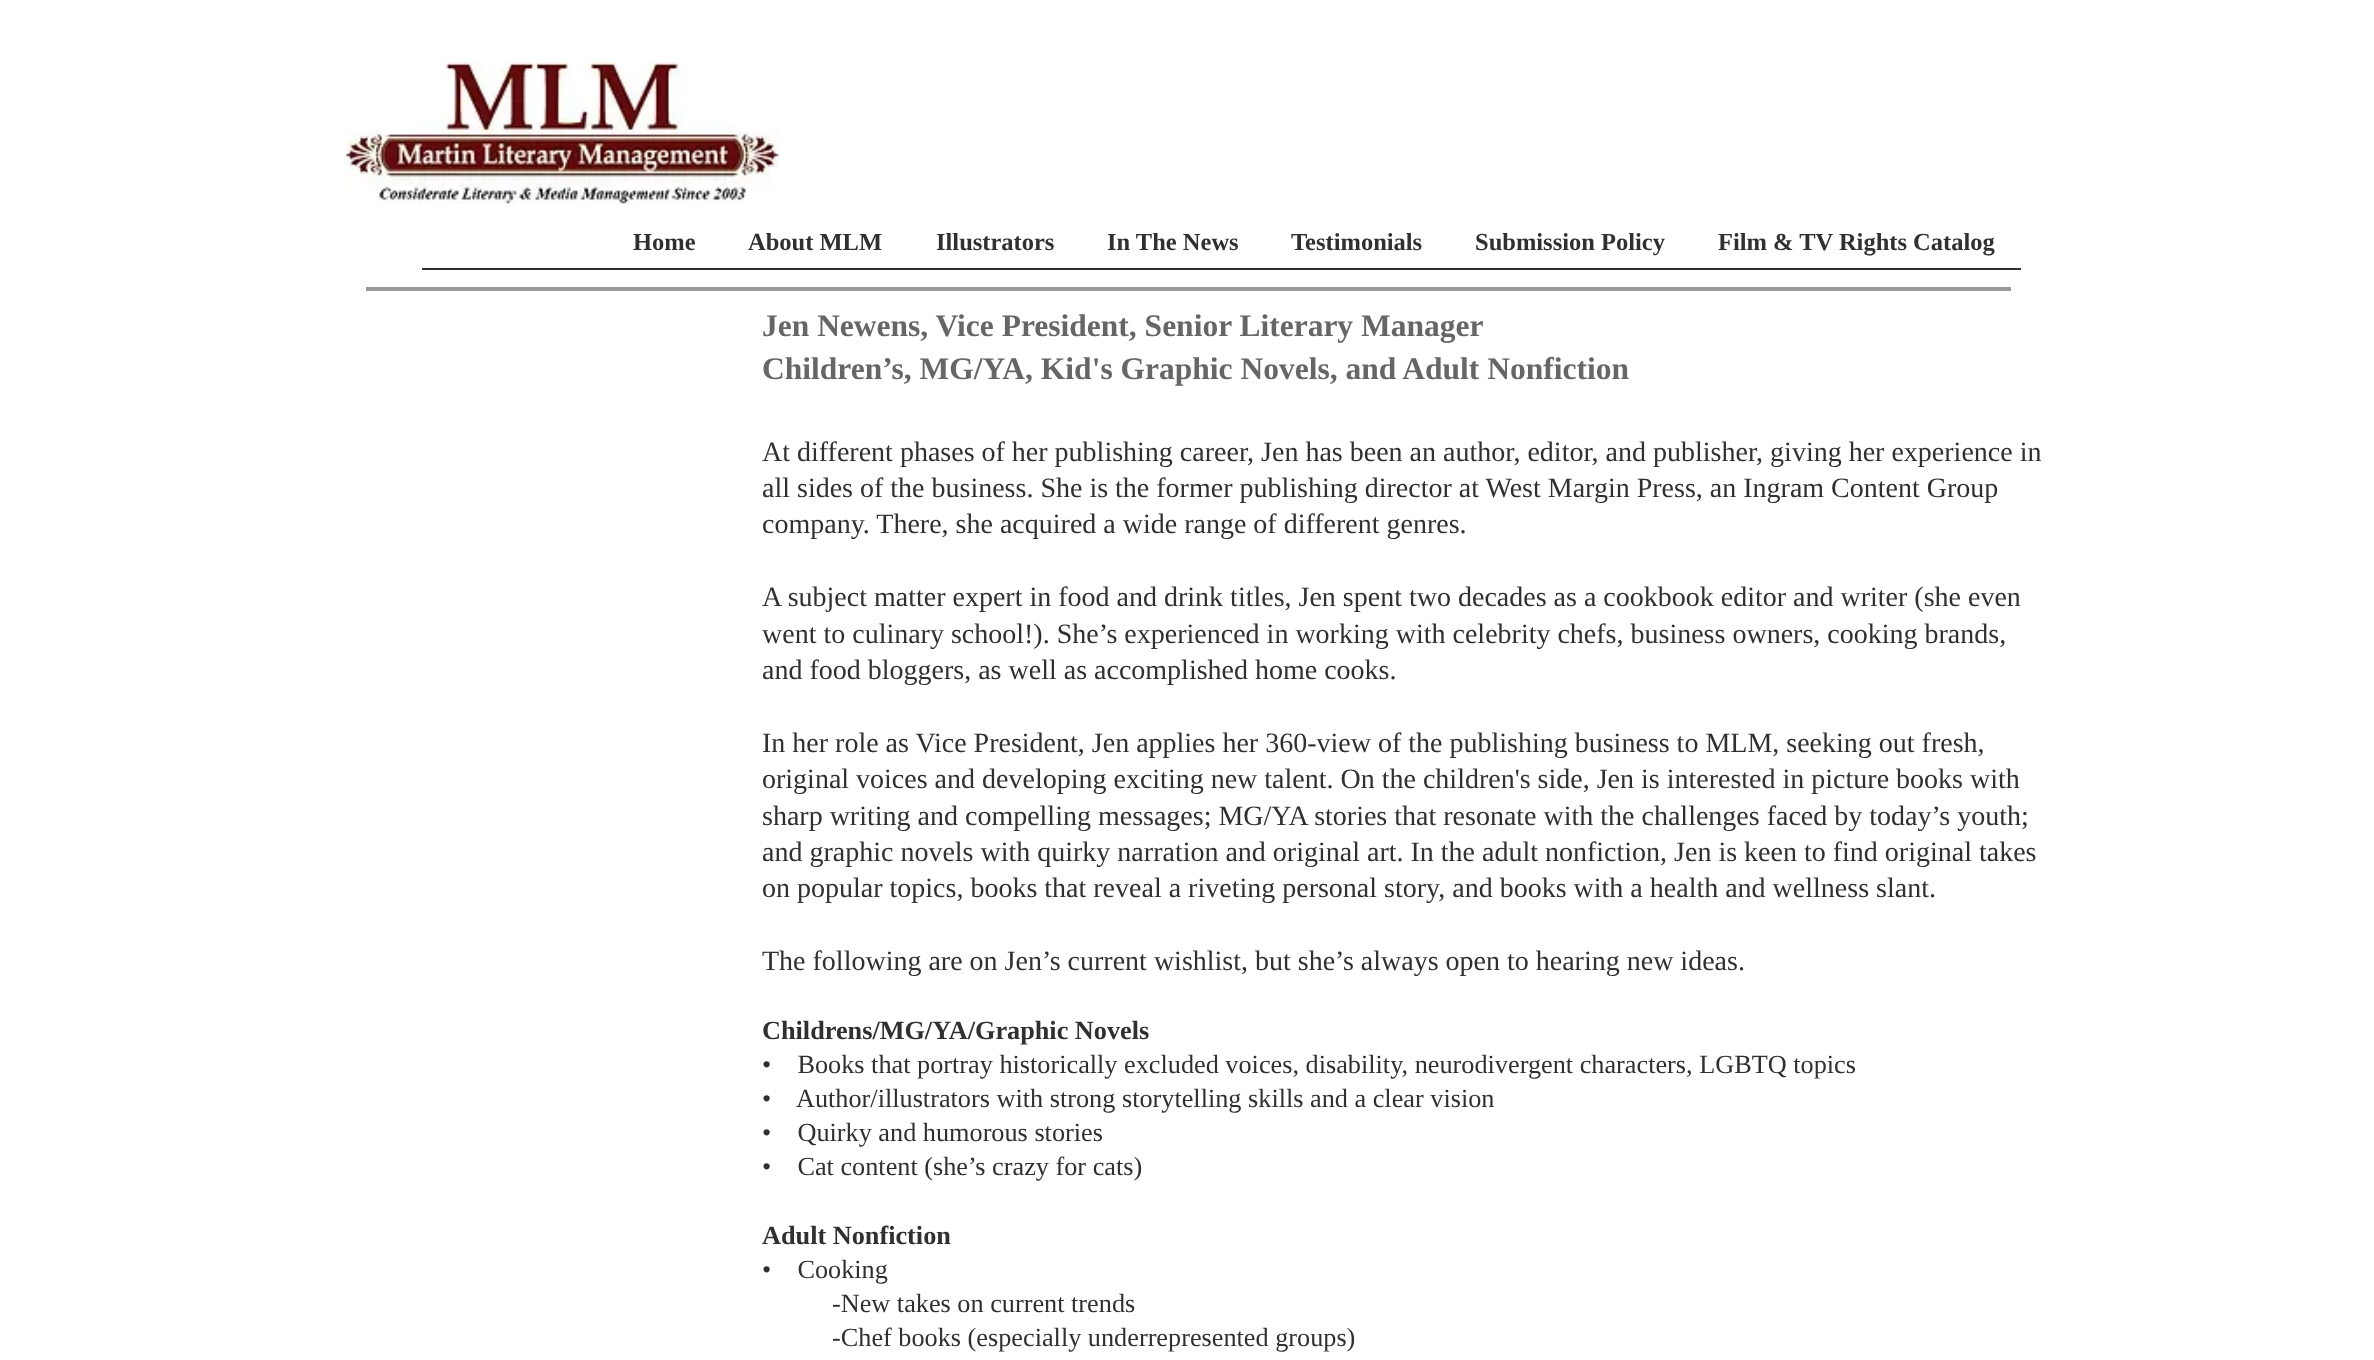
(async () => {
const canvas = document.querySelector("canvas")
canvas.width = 2374
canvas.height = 1360
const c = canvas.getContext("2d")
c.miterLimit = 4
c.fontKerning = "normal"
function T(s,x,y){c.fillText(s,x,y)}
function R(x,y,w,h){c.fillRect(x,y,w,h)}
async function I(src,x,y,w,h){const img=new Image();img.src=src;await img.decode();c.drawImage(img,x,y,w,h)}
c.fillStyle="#fff"
R(0,0,2374,1360)
await I("1.png",344,62,437,142)
c.font="bold 24.5px Liberation Serif"
c.fillStyle="#303030"
T("Home",633,250)
T("About MLM",748,250)
T("Illustrators",936,250)
T("In The News",1107,250)
T("Testimonials",1291,250)
T("Submission Policy",1475,250)
T("Film & TV Rights Catalog",1718,250)
R(422,268,1599,2)
c.fillStyle="#999"
R(366,287,1645,4)
c.font="bold 31.5px Liberation Serif"
c.fillStyle="#666"
T("Jen Newens, Vice President, Senior Literary Manager",762,336)
T("Children’s, MG/YA, Kid's Graphic Novels, and Adult Nonfiction",762,379)
c.font="28px Liberation Serif"
c.fillStyle="#303030"
T("At different phases of her publishing career, Jen has been an author, editor, and publisher, giving her experience in",762,461)
T("all sides of the business. She is the former publishing director at West Margin Press, an Ingram Content Group",762,497)
T("company. There, she acquired a wide range of different genres.",762,533)
T("A subject matter expert in food and drink titles, Jen spent two decades as a cookbook editor and writer (she even",762,606)
T("went to culinary school!). She’s experienced in working with celebrity chefs, business owners, cooking brands,",762,643)
T("and food bloggers, as well as accomplished home cooks.",762,679)
T("In her role as Vice President, Jen applies her 360-view of the publishing business to MLM, seeking out fresh,",762,752)
T("original voices and developing exciting new talent. On the children's side, Jen is interested in picture books with",762,788)
T("sharp writing and compelling messages; MG/YA stories that resonate with the challenges faced by today’s youth;",762,825)
T("and graphic novels with quirky narration and original art. In the adult nonfiction, Jen is keen to find original takes",762,861)
T("on popular topics, books that reveal a riveting personal story, and books with a health and wellness slant.",762,897)
T("The following are on Jen’s current wishlist, but she’s always open to hearing new ideas.",762,970)
c.font="bold 26.25px Liberation Serif"
T("Childrens/MG/YA/Graphic Novels",762,1039)
c.font="26.25px Liberation Serif"
T("•    Books that portray historically excluded voices, disability, neurodivergent characters, LGBTQ topics",762,1073)
T("•    Author/illustrators with strong storytelling skills and a clear vision",762,1107)
T("•    Quirky and humorous stories",762,1141)
T("•    Cat content (she’s crazy for cats)",762,1175)
c.font="bold 26.25px Liberation Serif"
T("Adult Nonfiction",762,1244)
c.font="26.25px Liberation Serif"
T("•    Cooking",762,1278)
T("-New takes on current trends",832,1312)
T("-Chef books (especially underrepresented groups)",832,1346)
})()
